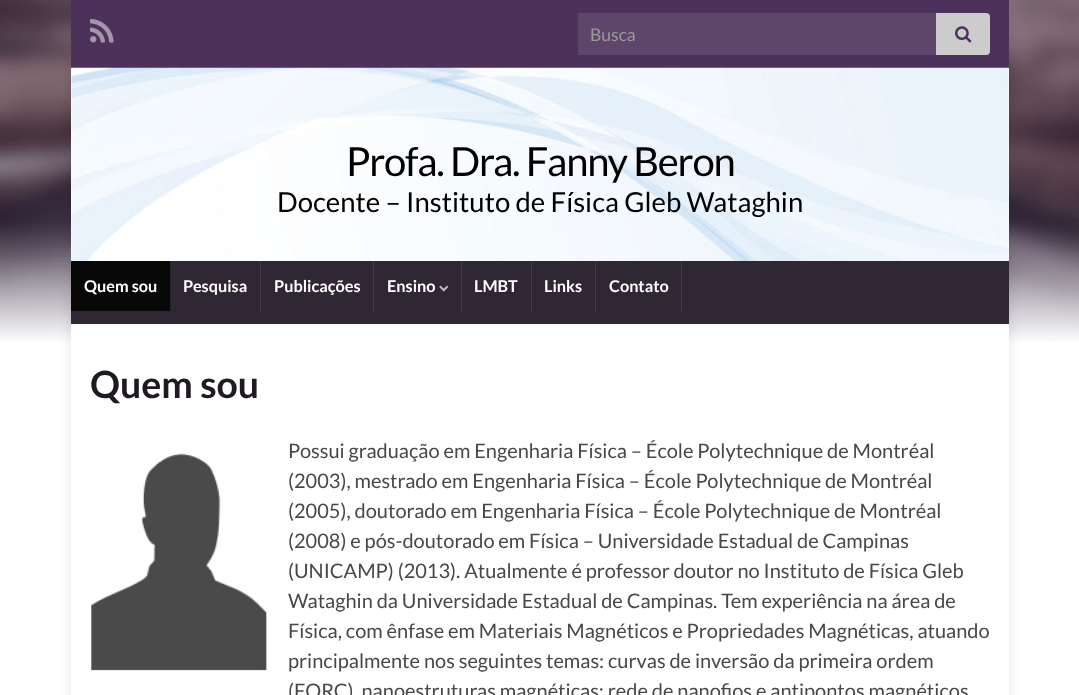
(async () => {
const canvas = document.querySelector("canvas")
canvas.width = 1079
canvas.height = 695
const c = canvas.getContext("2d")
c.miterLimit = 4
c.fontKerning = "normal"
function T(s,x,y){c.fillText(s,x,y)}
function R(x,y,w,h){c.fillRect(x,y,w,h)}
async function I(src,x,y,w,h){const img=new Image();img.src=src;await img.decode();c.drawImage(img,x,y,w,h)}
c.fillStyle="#fff"
R(0,0,1079,695)
await I("1.png",0,0,1079,342)
c.fillStyle="#0000001a"
c.filter="blur(6px)"
c.beginPath()
c.rect(71,0,938,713)
c.fill()
c.filter="none"
c.fillStyle="#4c315a"
R(71,0,938,68)
await I("2.png",90,19,24,24)
c.fillStyle="#5e466b"
R(578,13,358,42)
c.font="17.5px Lato"
c.fillStyle="#999"
T("Busca",590,41)
c.fillStyle="#ccc"
c.beginPath()
c.roundRect(936,13,54,42,[0,4,4,0])
c.fill()
await I("3.png",955,26,17,17)
c.fillStyle="#fff"
R(71,68,938,193)
await I("4.png",71,67,938,194)
c.fillStyle="#2f2733"
R(71,261,938,63)
c.letterSpacing="-1.25px"
c.font="40px Lato"
c.fillStyle="#000"
T("Profa. Dra. Fanny Beron",346,176)
c.letterSpacing="0px"
c.font="27.5px Lato"
T("Docente – Instituto de Física Gleb Wataghin",277,212)
c.fillStyle="#232323"
R(170,261,1,50)
c.fillStyle="#080808"
R(71,261,99,50)
c.font="bold 16.25px Lato"
c.fillStyle="#fff"
T("Quem sou",84,292)
c.fillStyle="#443d47"
R(260,261,1,50)
c.fillStyle="#fff"
T("Pesquisa",183,292)
c.fillStyle="#443d47"
R(373,261,1,50)
c.fillStyle="#fff"
T("Publicações",274,292)
c.fillStyle="#443d47"
R(461,261,1,50)
c.fillStyle="#fff"
T("Ensino",387,292)
await I("5.png",439,285,10,7)
c.fillStyle="#443d47"
R(531,261,1,50)
c.fillStyle="#fff"
T("LMBT",474,292)
c.fillStyle="#443d47"
R(595,261,1,50)
c.fillStyle="#fff"
T("Links",544,292)
c.fillStyle="#443d47"
R(681,261,1,50)
c.fillStyle="#fff"
T("Contato",609,292)
R(71,324,938,371)
c.font="bold 37.5px Lato"
c.fillStyle="#1f1a22"
T("Quem sou",90,398)
await I("6.png",91,453,176,218)
c.font="20px Lato"
c.fillStyle="#4a474b"
T("Possui graduação em Engenharia Física – École Polytechnique de Montréal",288,458)
T("(2003), mestrado em Engenharia Física – École Polytechnique de Montréal",288,488)
T("(2005), doutorado em Engenharia Física – École Polytechnique de Montréal",288,518)
T("(2008) e pós-doutorado em Física – Universidade Estadual de Campinas",288,548)
T("(UNICAMP) (2013). Atualmente é professor doutor no Instituto de Física Gleb",288,578)
T("Wataghin da Universidade Estadual de Campinas. Tem experiência na área de",288,608)
T("Física, com ênfase em Materiais Magnéticos e Propriedades Magnéticas, atuando",288,638)
T("principalmente nos seguintes temas: curvas de inversão da primeira ordem",288,668)
T("(FORC), nanoestruturas magnéticas: rede de nanofios e antipontos magnéticos",288,698)
})()
